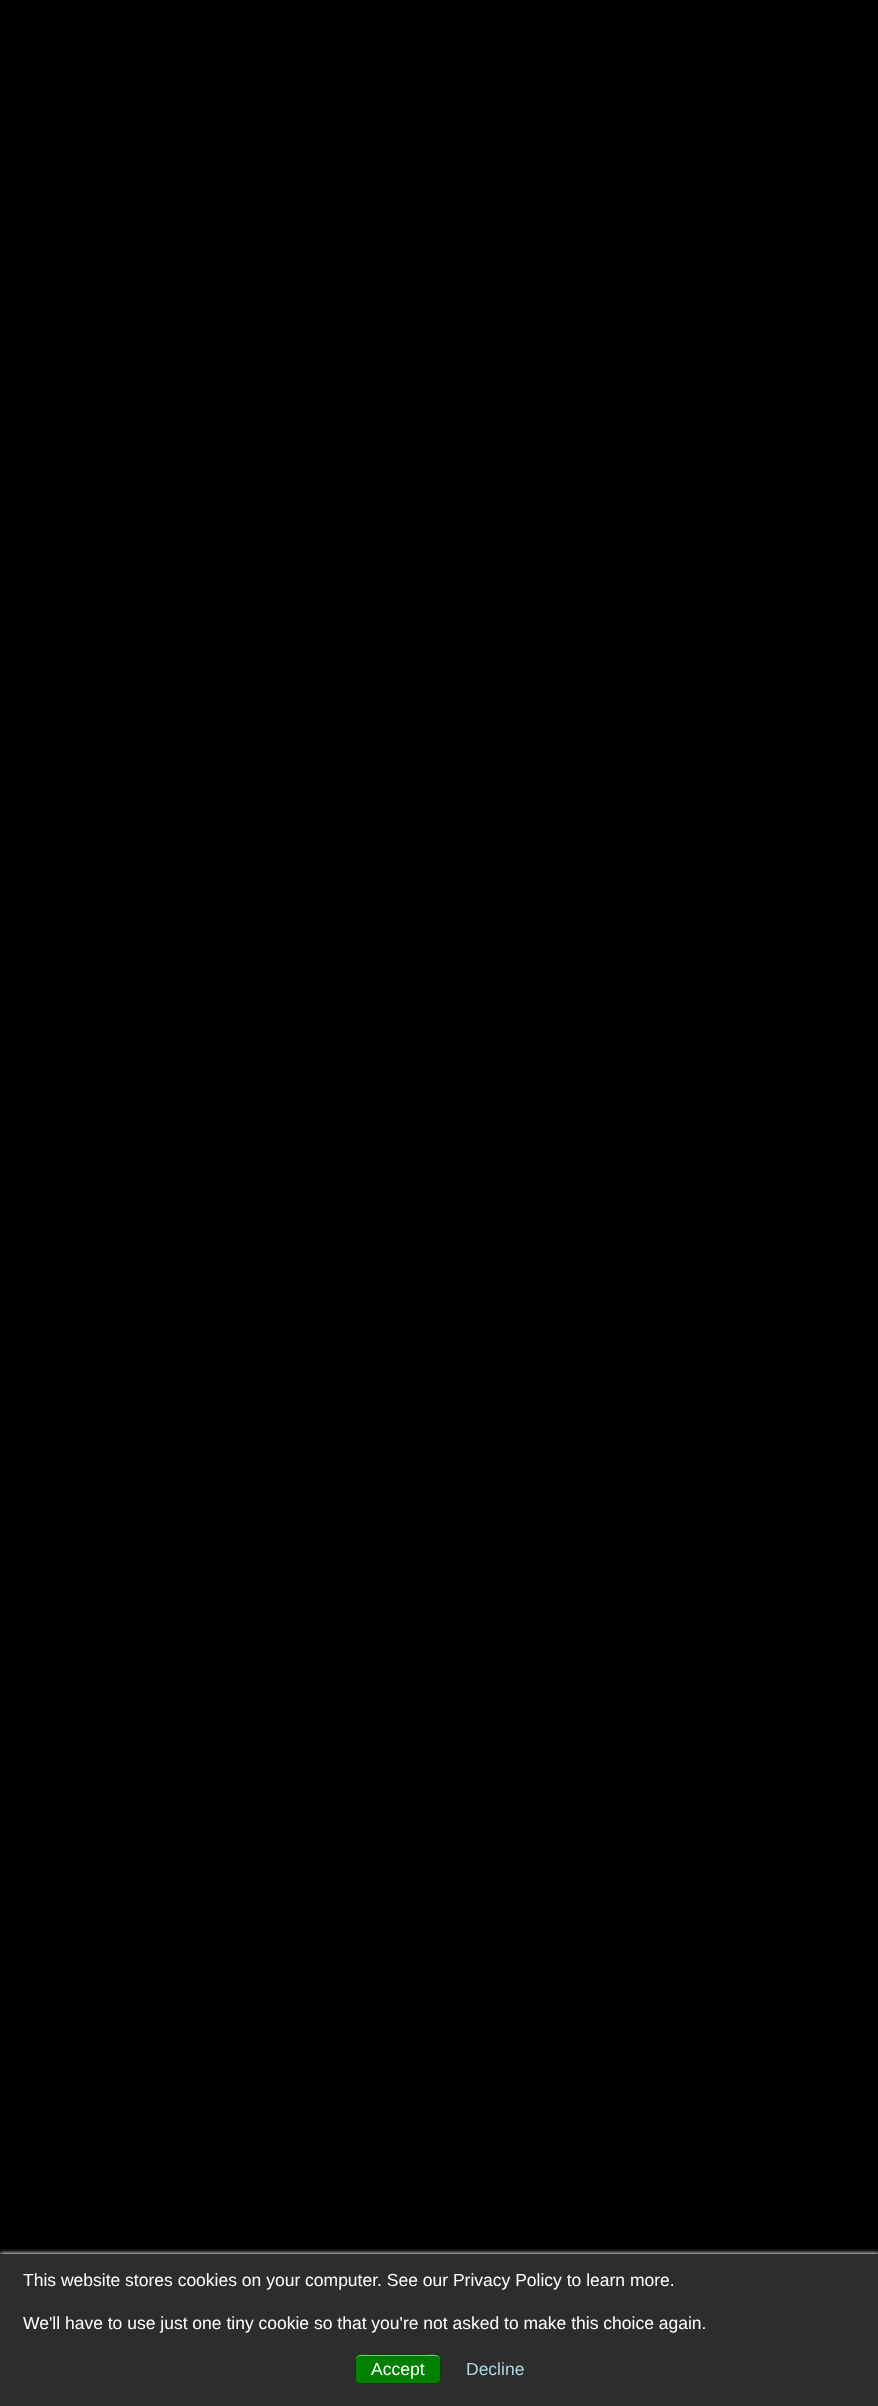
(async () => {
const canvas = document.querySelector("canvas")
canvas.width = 878
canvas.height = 2406
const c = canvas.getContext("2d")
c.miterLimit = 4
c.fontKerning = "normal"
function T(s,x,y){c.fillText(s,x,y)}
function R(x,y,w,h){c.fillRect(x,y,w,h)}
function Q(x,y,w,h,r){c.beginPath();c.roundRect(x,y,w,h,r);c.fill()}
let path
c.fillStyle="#000"
R(0,0,878,2406)
c.fillStyle="#eaf0f6"
c.filter="blur(2px)"
c.beginPath()
c.rect(0,2253,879,152)
c.fill()
c.filter="none"
c.fillStyle="#2d2d2d"
R(0,2254,878,152)
c.font="17.5px Liberation Sans"
c.fillStyle="#fff"
T("This website stores cookies on your computer. See our Privacy Policy to learn more.",23,2286)
T("We'll have to use just one tiny cookie so that you're not asked to make this choice again.",23,2329)
c.fillStyle="#008000"
Q(355,2354,86,30,5)
c.fillStyle="#80c080"
path = new Path2D("M360 2356h76c2 0 4 2 4 4c0-8-12-5-17-5h-50c-5 0-17-3-17 5c0-2 2-4 4-4z")
c.fill(path)
c.beginPath()
c.roundRect(355.5,2354.5,85,29,4.5)
c.strokeStyle="#00000080"
c.stroke()
c.fillStyle="#fff"
T("Accept",371,2375)
c.fillStyle="#add8e6"
T("Decline",466,2375)
})()
